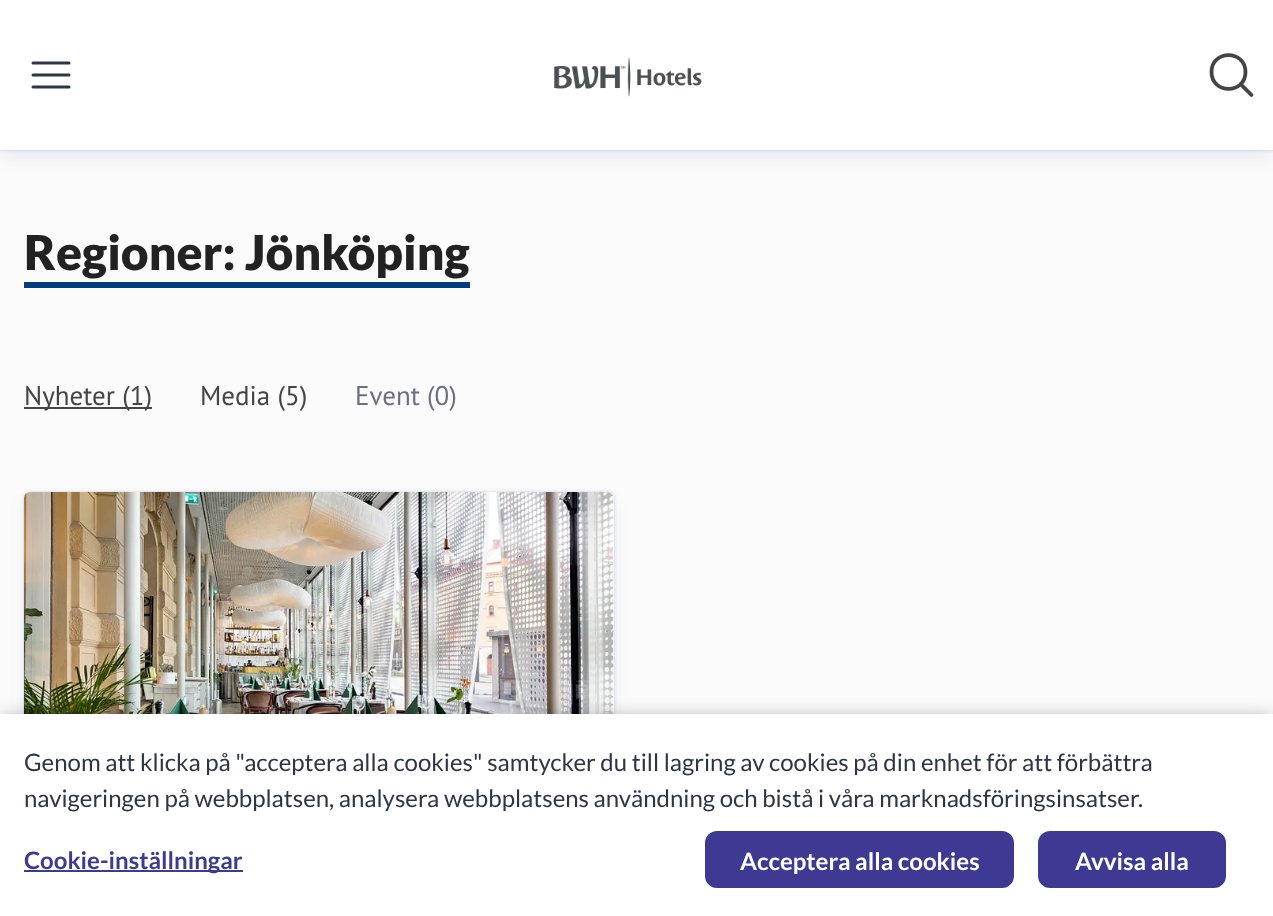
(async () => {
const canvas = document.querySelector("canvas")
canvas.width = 1273
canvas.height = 916
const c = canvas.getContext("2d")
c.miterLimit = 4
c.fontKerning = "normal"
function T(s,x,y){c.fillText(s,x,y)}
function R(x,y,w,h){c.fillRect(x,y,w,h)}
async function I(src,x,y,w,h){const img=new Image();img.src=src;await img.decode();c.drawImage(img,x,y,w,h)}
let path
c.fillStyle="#fbfbfb"
R(0,0,1273,916)
c.fillStyle="#3149a424"
c.filter="blur(1.5px)"
c.beginPath()
c.rect(0,0,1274,150)
c.fill()
c.filter="none"
c.fillStyle="#3149a41a"
c.filter="blur(2px)"
c.beginPath()
c.rect(0,0,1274,150)
c.fill()
c.filter="none"
c.fillStyle="#3149a414"
c.filter="blur(7.5px)"
c.beginPath()
c.rect(0,9,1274,150)
c.fill()
c.filter="none"
c.fillStyle="#fff"
R(0,0,1273,150)
path = new Path2D("M33 75h36m-36-12h36m-36 24h36")
c.strokeStyle="#2c3647"
c.lineWidth=3
c.lineCap="round"
c.lineJoin="round"
c.stroke(path)
await I("1.png",554,57,148,40)
path = new Path2D("M1245.5 72c0 22.5-34 22.5-34 0c0-22.5 34-22.5 34 0zm6 23l-11-11")
c.strokeStyle="#444"
c.lineWidth=3.8
c.lineJoin="miter"
c.stroke(path)
c.fillStyle="#003c7f"
R(24,282,446,6)
c.font="900 48px Lato"
c.fillStyle="#222"
T("Regioner: Jönköping",24,270)
c.fillStyle="#444"
R(24,407,128,2)
c.font="27px PT Sans"
T("Nyheter (1)",24,405)
T("Media (5)",200,405)
c.fillStyle="#6e6d86"
T("Event (0)",355,405)
c.fillStyle="#3149a424"
c.filter="blur(1.5px)"
c.beginPath()
c.roundRect(24,492,590,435,6)
c.fill()
c.filter="none"
c.fillStyle="#3149a41a"
c.filter="blur(2px)"
c.beginPath()
c.roundRect(24,492,590,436,6)
c.fill()
c.filter="none"
c.fillStyle="#3149a414"
c.filter="blur(7.5px)"
c.beginPath()
c.roundRect(24,501,590,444,6)
c.fill()
c.filter="none"
c.fillStyle="#fff"
c.beginPath()
c.roundRect(24,492,590,330,[6,6,0,0])
c.fill()
await I("2.png",24,492,590,222)
await I("3.png",24,492,590,222)
c.fillStyle="#00000080"
c.filter="blur(11px)"
c.beginPath()
c.rect(0,722,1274,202)
c.fill()
c.filter="none"
c.fillStyle="#fff"
R(0,714,1273,202)
c.font="24px Lato"
c.fillStyle="#2c3647"
T("Genom att klicka på \"acceptera alla cookies\" samtycker du till lagring av cookies på din enhet för att förbättra",24,771)
T("navigeringen på webbplatsen, analysera webbplatsens användning och bistå i våra marknadsföringsinsatser.",24,807)
c.fillStyle="#3e3a93"
R(24,870,219,2)
c.font="bold 24px Lato"
T("Cookie-inställningar",24,869)
c.beginPath()
c.roundRect(706,832,307,55,11)
c.fill()
c.strokeStyle="#3e3a93"
c.lineWidth=2
c.stroke()
c.fillStyle="#fff"
T("Acceptera alla cookies",740,870)
c.fillStyle="#3e3a93"
c.beginPath()
c.roundRect(1039,832,186,55,11)
c.fill()
c.stroke()
c.fillStyle="#fff"
T("Avvisa alla",1075,870)
})()
